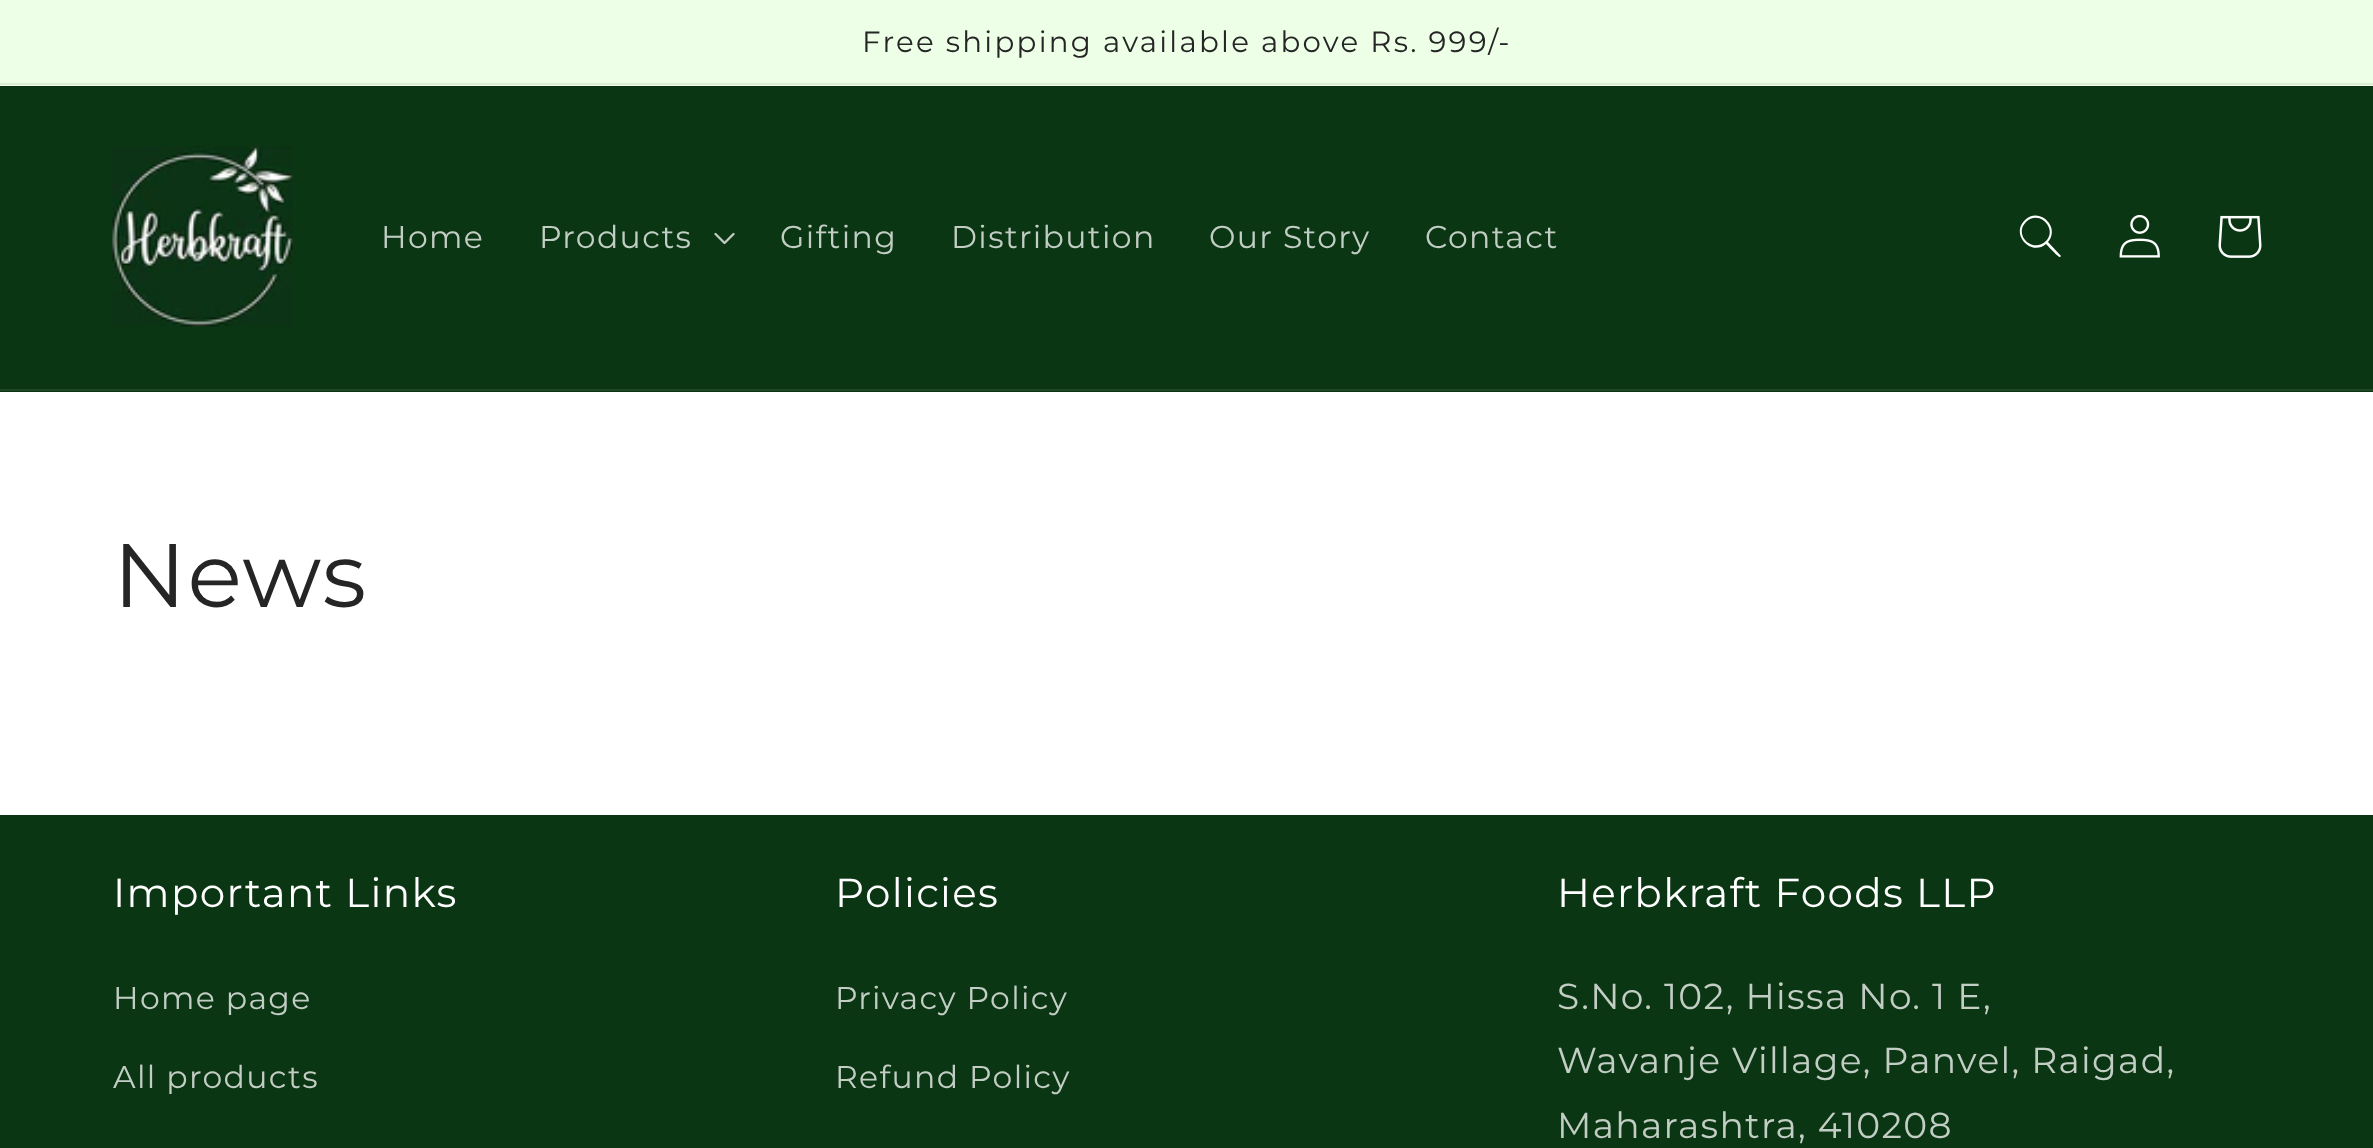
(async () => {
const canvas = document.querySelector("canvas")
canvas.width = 2373
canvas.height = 1148
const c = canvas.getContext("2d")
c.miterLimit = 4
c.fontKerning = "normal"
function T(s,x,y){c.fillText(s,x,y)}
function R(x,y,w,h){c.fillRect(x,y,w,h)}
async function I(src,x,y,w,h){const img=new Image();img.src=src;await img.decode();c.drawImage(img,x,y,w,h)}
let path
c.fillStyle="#fff"
R(0,0,2373,1148)
c.fillStyle="#edffe7"
R(0,0,2373,86)
c.fillStyle="#ddeed7"
R(0,83,2373,2)
c.letterSpacing="2.25px"
c.font="29.25px Montserrat"
c.fillStyle="#252525"
T("Free shipping available above Rs. 999/-",862,52)
c.fillStyle="#0b3613"
R(0,86,2373,306)
c.fillStyle="#1f4626"
R(0,389,2373,2)
await I("1.png",112,146,181,181)
c.letterSpacing="1.35px"
c.font="31.5px Montserrat"
c.fillStyle="#c2cdc4"
T("Home",381,248)
T("Products",539,248)
await I("2.png",714,232,21,13)
T("Gifting",780,248)
T("Distribution",951,248)
T("Our Story",1209,248)
T("Contact",1425,248)
c.fillStyle="#fff"
path = new Path2D("M2046 241c-13 13-33-6-20-19c13-13 32 7 20 19zm0 3c-15 13-36-10-21-24c14-14 36 7 23 22l13 14l-1 1c-1 1-12-11-14-13z")
c.fill(path,"evenodd")
await I("3.png",2119,214,41,44)
await I("4.png",2218,215,44,43)
c.font="90px Montserrat"
c.fillStyle="#252525"
T("News",113,607)
c.fillStyle="#0b3613"
R(0,815,2373,333)
c.font="40.5px Montserrat"
c.fillStyle="#fff"
T("Important Links",113,907)
c.font="31.5px Montserrat"
c.fillStyle="#c2cdc4"
T("Home page",113,1009)
T("All products",113,1088)
c.font="40.5px Montserrat"
c.fillStyle="#fff"
T("Policies",835,907)
c.font="31.5px Montserrat"
c.fillStyle="#c2cdc4"
T("Privacy Policy",835,1009)
T("Refund Policy",835,1088)
c.font="40.5px Montserrat"
c.fillStyle="#fff"
T("Herbkraft Foods LLP",1557,907)
c.font="36px Montserrat"
c.fillStyle="#c2cdc4"
T("S.No. 102, Hissa No. 1 E,",1557,1009)
T("Wavanje Village, Panvel, Raigad,",1557,1073)
T("Maharashtra, 410208",1557,1138)
})()
